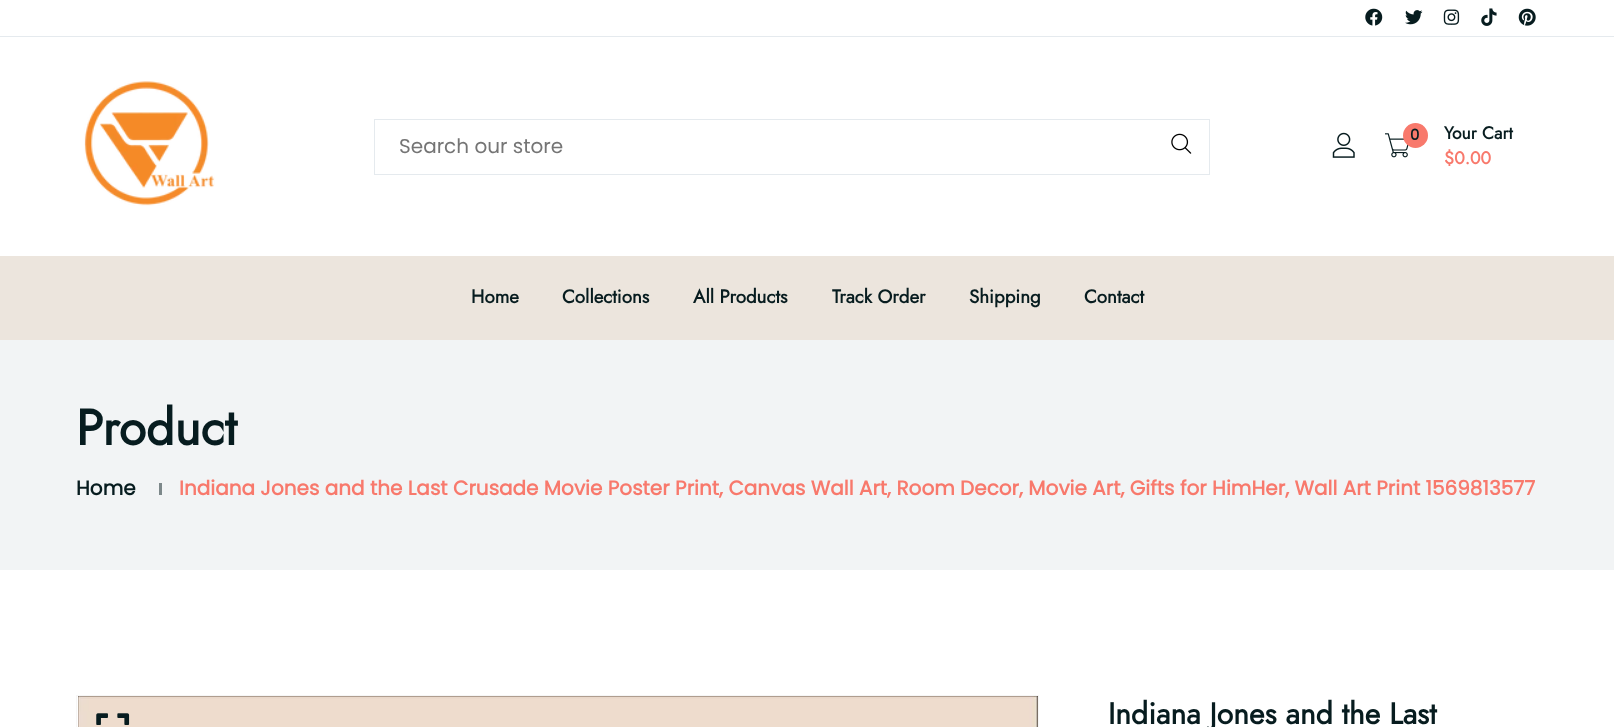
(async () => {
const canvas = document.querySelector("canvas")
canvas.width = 1614
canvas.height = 727
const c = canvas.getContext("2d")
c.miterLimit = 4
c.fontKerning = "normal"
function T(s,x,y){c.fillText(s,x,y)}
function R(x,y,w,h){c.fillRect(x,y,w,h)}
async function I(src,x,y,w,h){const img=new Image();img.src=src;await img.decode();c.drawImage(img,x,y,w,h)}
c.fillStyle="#fff"
R(0,0,1614,727)
c.fillStyle="#e5eaee"
R(0,36,1614,1)
await I("1.png",1365,8,18,18)
await I("2.png",1405,10,18,15)
await I("3.png",1443,9,17,16)
await I("4.png",1481,8,16,18)
await I("5.png",1518,8,18,18)
await I("6.png",84,81,131,125)
c.strokeStyle="#e5eaee"
c.strokeRect(374.5,119.5,835,55)
c.font="20px Poppins"
c.fillStyle="#757575"
T("Search our store",399,153)
await I("7.png",1171,133,21,21)
await I("8.png",1332,132,23,26)
await I("9.png",1385,133,24,25)
c.fillStyle="#f8796c"
c.beginPath()
c.arc(1415.5,135.5,12.5,0,7)
c.fill()
c.font="bold 15px Poppins"
c.fillStyle="#071c1f"
T("0",1410,140)
c.font="bold 17.5px Jost"
T("Your Cart",1444,139)
c.fillStyle="#f8796c"
T("$0.00",1444,164)
c.fillStyle="#ece5dd"
R(0,256,1614,84)
c.font="bold 18.75px Jost"
c.fillStyle="#071c1f"
T("Home",471,303)
T("Collections",562,303)
T("All Products",693,303)
T("Track Order",832,303)
T("Shipping",969,303)
T("Contact",1084,303)
c.fillStyle="#f2f4f5"
R(0,340,1614,230)
c.font="bold 50px Jost"
c.fillStyle="#071c1f"
T("Product",76,445)
c.font="bold 20px Poppins"
T("Home",76,495)
c.fillStyle="#7d888a"
R(159,483,3,12)
c.fillStyle="#f8796c"
T("Indiana Jones and the Last Crusade Movie Poster Print, Canvas Wall Art, Room Decor, Movie Art, Gifts for HimHer, Wall Art Print 1569813577",179,495)
c.strokeStyle="#f6f6f6"
c.strokeRect(76.5,695.5,962,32)
await I("10.png",78,696,960,31)
await I("11.png",96,713,34,12)
c.font="bold 30px Jost"
c.fillStyle="#071c1f"
T("Indiana Jones and the Last",1108,724)
})()
